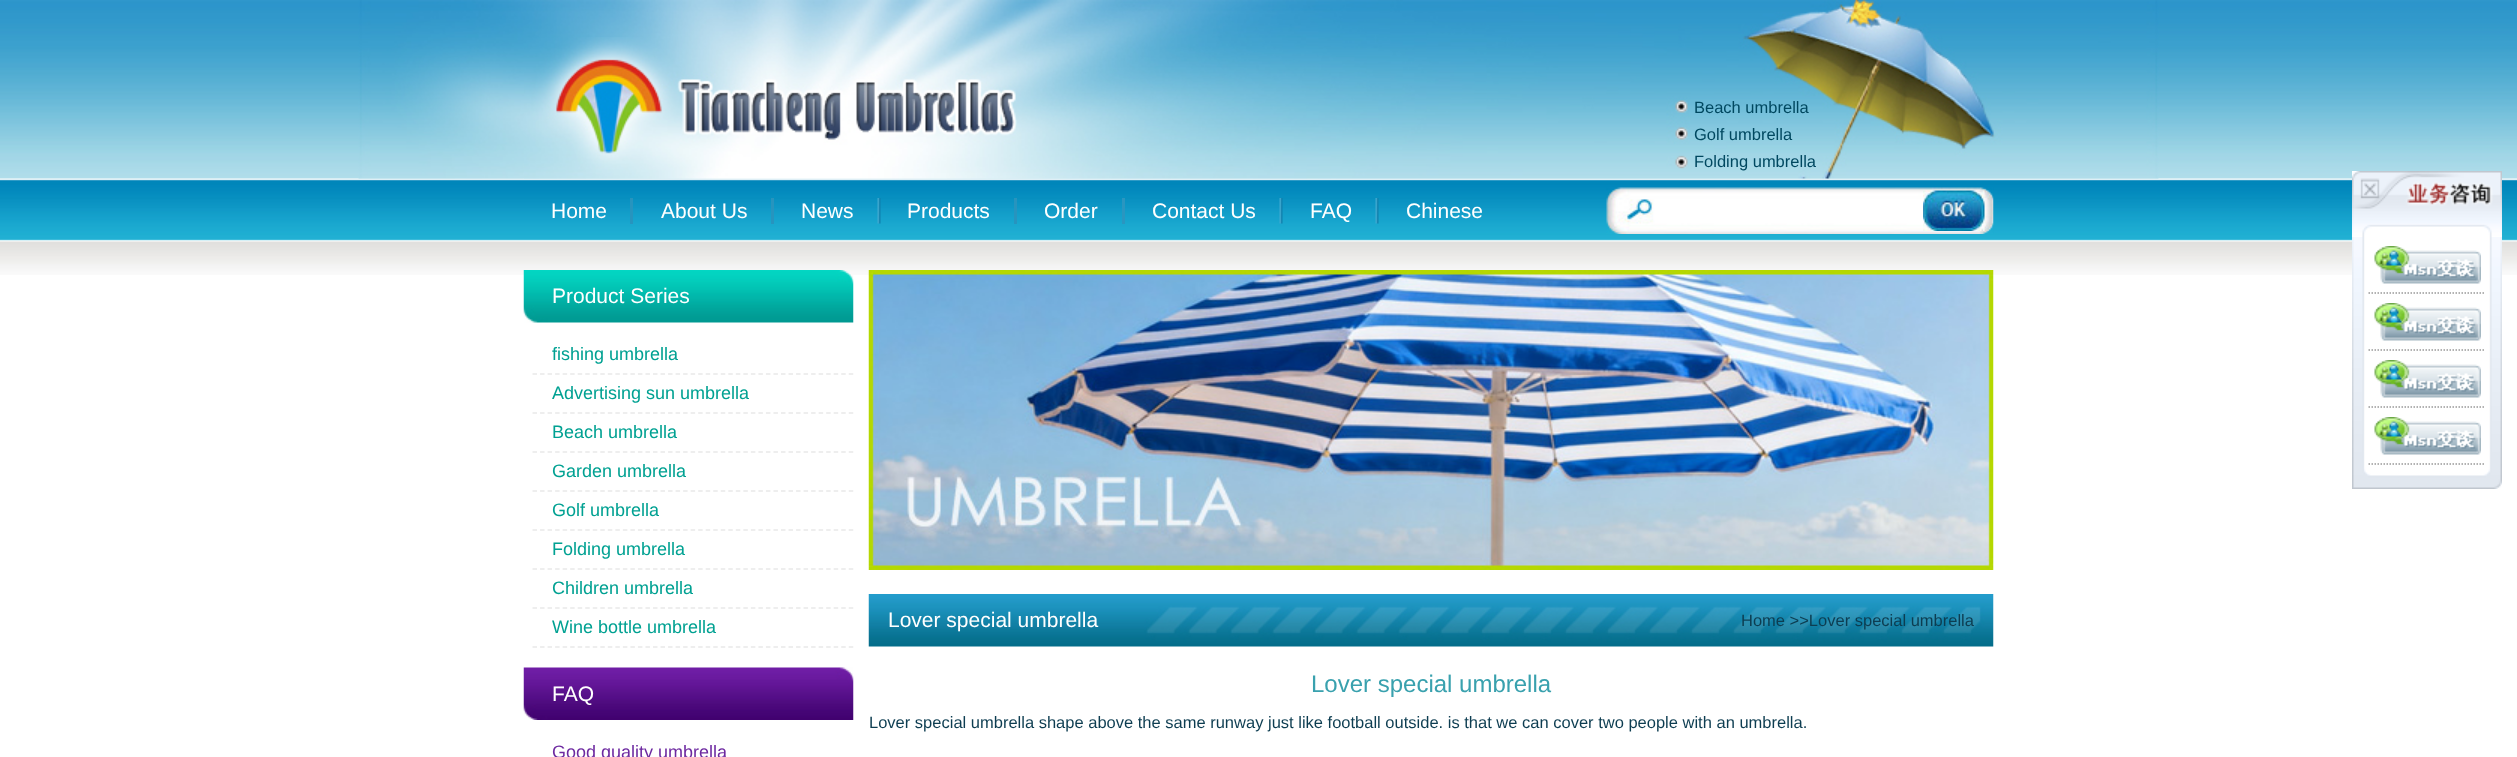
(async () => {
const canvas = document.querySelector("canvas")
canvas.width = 2517
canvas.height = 757
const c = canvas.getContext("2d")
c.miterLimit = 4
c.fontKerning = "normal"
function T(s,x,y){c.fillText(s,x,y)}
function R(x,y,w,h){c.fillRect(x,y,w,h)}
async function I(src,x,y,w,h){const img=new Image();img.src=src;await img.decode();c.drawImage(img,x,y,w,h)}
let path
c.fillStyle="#fff"
R(0,0,2517,757)
await I("1.png",0,0,2517,275)
await I("2.png",358,0,1801,179)
await I("3.png",524,37,493,142)
c.font="16.5px Liberation Sans"
c.fillStyle="#004860"
T("Beach umbrella",1694,113)
T("Golf umbrella",1694,140)
T("Folding umbrella",1694,167)
c.fillStyle="#2794be"
R(630,198,3,26)
c.font="21px Liberation Sans"
c.fillStyle="#fff"
T("Home",551,218)
c.fillStyle="#2794be"
R(771,198,3,26)
c.fillStyle="#fff"
T("About Us",661,218)
await I("4.png",877,198,4,26)
T("News",801,218)
c.fillStyle="#2794be"
R(1014,198,3,26)
c.fillStyle="#fff"
T("Products",907,218)
c.fillStyle="#2a96c0"
R(1122,198,3,26)
c.fillStyle="#fff"
T("Order",1044,218)
await I("4.png",1279,198,4,26)
T("Contact Us",1152,218)
await I("4.png",1375,198,4,26)
T("FAQ",1310,218)
T("Chinese",1406,218)
await I("5.png",1606,187,388,47)
await I("6.png",1923,190,62,41)
await I("7.png",2352,171,150,66)
await I("8.png",2352,237,150,252)
path = new Path2D("M2368.5 293h117")
c.strokeStyle="#999"
c.lineWidth=1.5
c.setLineDash([1.5,1.5])
c.stroke(path)
await I("9.png",2374,246,107,38)
path = new Path2D("M2368.5 350h117")
c.stroke(path)
await I("9.png",2374,303,107,38)
path = new Path2D("M2368.5 407h117")
c.stroke(path)
await I("9.png",2374,360,107,38)
path = new Path2D("M2368.5 464h117")
c.stroke(path)
await I("9.png",2374,417,107,38)
await I("10.png",523,270,331,53)
T("Product Series",552,303)
path = new Path2D("M532.5 374h321")
c.strokeStyle="#e9e9e9"
c.setLineDash([4.5,3.03])
c.stroke(path)
c.font="18px Liberation Sans"
c.fillStyle="#00a192"
T("fishing umbrella",552,360)
path = new Path2D("M532.5 413h321")
c.stroke(path)
T("Advertising sun umbrella",552,399)
path = new Path2D("M532.5 452h321")
c.stroke(path)
T("Beach umbrella",552,438)
path = new Path2D("M532.5 491h321")
c.stroke(path)
T("Garden umbrella",552,477)
path = new Path2D("M532.5 530h321")
c.stroke(path)
T("Golf umbrella",552,516)
path = new Path2D("M532.5 569h321")
c.stroke(path)
T("Folding umbrella",552,555)
path = new Path2D("M532.5 608h321")
c.stroke(path)
T("Children umbrella",552,594)
path = new Path2D("M532.5 647h321")
c.stroke(path)
T("Wine bottle umbrella",552,633)
await I("11.png",523,667,331,53)
c.font="21px Liberation Sans"
c.fillStyle="#fff"
T("FAQ",552,701)
c.font="18px Liberation Sans"
c.fillStyle="#6d29a0"
T("Good quality umbrella",552,758)
await I("12.png",868,270,1126,300)
await I("13.png",868,594,1126,53)
c.font="21px Liberation Sans"
c.fillStyle="#fff"
T("Lover special umbrella",888,627)
c.font="16.5px Liberation Sans"
c.fillStyle="#0d3d51"
T("Home >>Lover special umbrella",1741,626)
c.font="24px Liberation Sans"
c.fillStyle="#39a1ae"
T("Lover special umbrella",1311,692)
c.font="16.5px Liberation Sans"
c.fillStyle="#0d3d51"
T("Lover special umbrella shape above the same runway just like football outside. is that we can cover two people with an umbrella.",869,728)
})()
